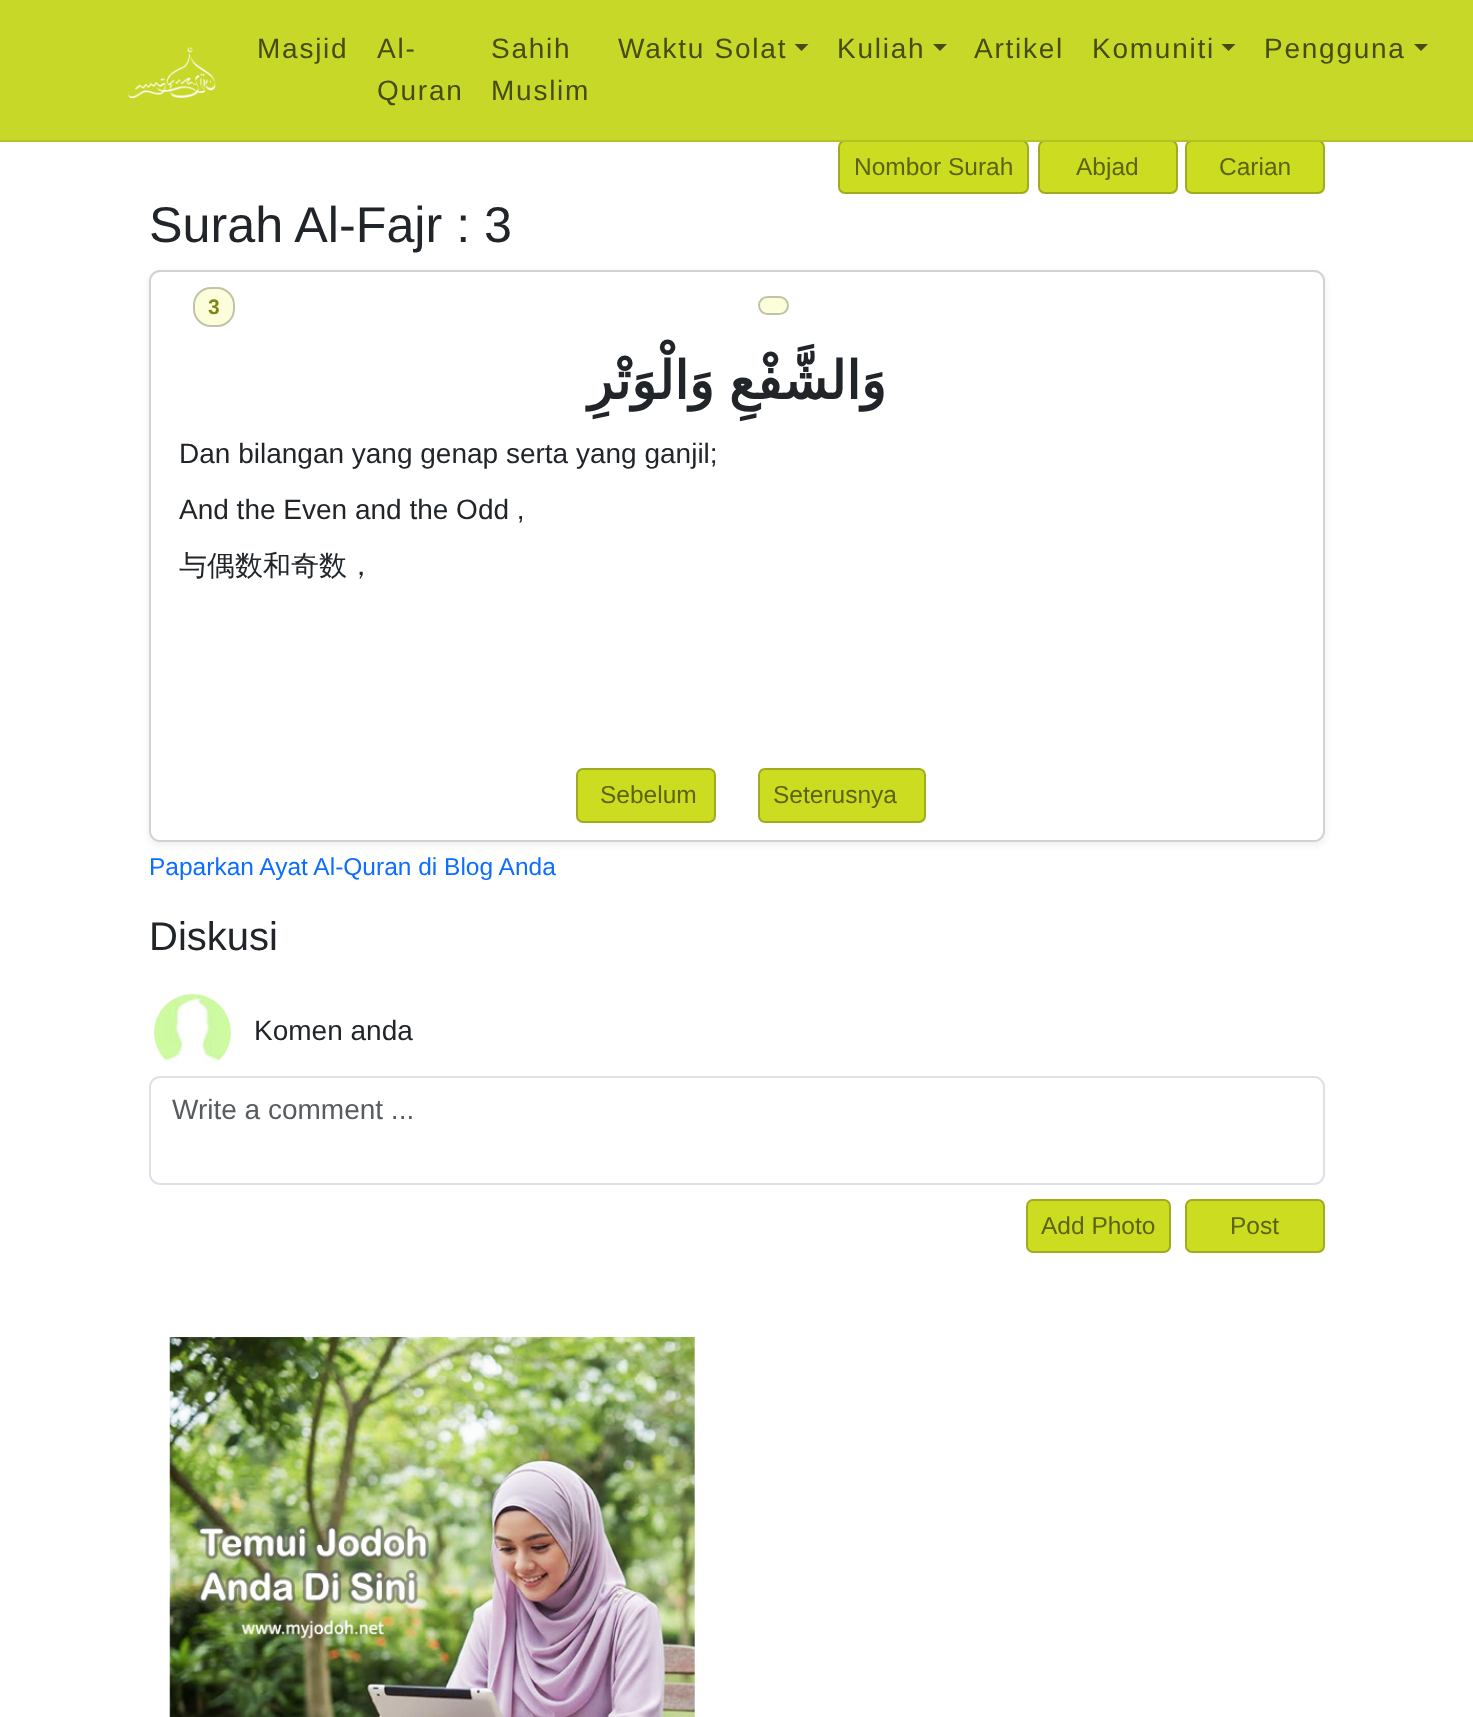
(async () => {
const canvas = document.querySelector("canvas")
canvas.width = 1473
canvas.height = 1717
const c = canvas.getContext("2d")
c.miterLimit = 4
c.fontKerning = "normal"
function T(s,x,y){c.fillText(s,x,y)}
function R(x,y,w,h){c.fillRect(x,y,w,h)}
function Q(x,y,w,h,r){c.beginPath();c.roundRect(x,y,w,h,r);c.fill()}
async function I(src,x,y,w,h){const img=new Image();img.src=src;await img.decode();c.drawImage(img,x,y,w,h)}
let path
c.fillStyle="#fff"
R(0,0,1473,1717)
c.fillStyle="#c8d829"
R(0,0,1473,140)
c.fillStyle="#ccdc21"
c.beginPath()
c.roundRect(839,141,189,52,6)
c.fill()
c.strokeStyle="#a0ac1f"
c.lineWidth=2
c.stroke()
c.beginPath()
c.roundRect(1039,141,138,52,6)
c.fill()
c.stroke()
c.beginPath()
c.roundRect(1186,141,138,52,6)
c.fill()
c.stroke()
c.fillStyle="#b4c225"
R(0,140,1473,2)
await I("1.png",127,47,89,51)
c.letterSpacing="1.75px"
c.font="28px Liberation Sans"
c.fillStyle="#464c0e"
T("Masjid",257,58)
T("Al-",377,58)
T("Quran",377,100)
T("Sahih",491,58)
T("Muslim",491,100)
T("Waktu Solat",618,58)
path = new Path2D("M794.5 44h14l-7 7z")
c.fill(path)
T("Kuliah",837,58)
path = new Path2D("M933 44h14l-7 7z")
c.fill(path)
T("Artikel",974,58)
T("Komuniti",1092,58)
path = new Path2D("M1221.5 44h14l-7 7z")
c.fill(path)
T("Pengguna",1264,58)
path = new Path2D("M1414 44h14l-7 7z")
c.fill(path)
c.letterSpacing="0px"
c.font="24.5px Liberation Sans"
c.fillStyle="#5d630f"
T("Nombor Surah",854,175)
T("Abjad",1076,175)
T("Carian",1219,175)
c.font="50.25px Liberation Sans"
c.fillStyle="#212529"
T("Surah Al-Fajr : 3",149,242)
c.fillStyle="#00000012"
c.filter="blur(3.5px)"
c.beginPath()
c.roundRect(149,273,1176,572,11)
c.fill()
c.filter="none"
c.fillStyle="#fff"
c.beginPath()
c.roundRect(150,271,1174,570,10)
c.fill()
c.strokeStyle="#d2d2d2"
c.stroke()
c.fillStyle="#fcfedb"
Q(193,287,42,40,18)
c.beginPath()
c.roundRect(194,288,40,38,17)
c.strokeStyle="#0000003b"
c.stroke()
c.font="bold 21px Liberation Sans"
c.fillStyle="#7e8812"
T("3",208,314)
c.fillStyle="#fcfedb"
Q(758,296,31,19,9.5)
c.beginPath()
c.roundRect(759,297,29,17,8.5)
c.stroke()
c.wordSpacing="-2px"
c.direction="rtl"
c.font="bold 52.5px DejaVu Sans"
c.fillStyle="#212529"
T("وَالشَّفْعِ وَالْوَتْرِ",886,399)
c.wordSpacing="0px"
c.direction="ltr"
c.font="28px Liberation Sans"
T("Dan bilangan yang genap serta yang ganjil;",179,463)
T("And the Even and the Odd ,",179,519)
c.font="500 28px WenQuanYi Zen Hei"
T("与偶数和奇数，",179,575)
c.fillStyle="#fff"
c.beginPath()
c.roundRect(151,761,1172,79,[0,0,9,9])
c.fill()
c.fillStyle="#ccdc21"
c.beginPath()
c.roundRect(577,769,138,53,6)
c.fill()
c.strokeStyle="#a0ac1f"
c.stroke()
c.font="24.5px Liberation Sans"
c.fillStyle="#5d630f"
T("Sebelum",600,803)
c.fillStyle="#ccdc21"
c.beginPath()
c.roundRect(759,769,166,53,6)
c.fill()
c.stroke()
c.fillStyle="#5d630f"
T("Seterusnya",773,803)
c.fillStyle="#0d6efd"
T("Paparkan Ayat Al-Quran di Blog Anda",149,875)
c.font="40px Liberation Sans"
c.fillStyle="#212529"
T("Diskusi",149,950)
await I("2.png",154,994,77,71)
c.font="28px Liberation Sans"
T("Komen anda",254,1040)
c.beginPath()
c.roundRect(150,1077,1174,107,10)
c.strokeStyle="#dee2e6"
c.stroke()
c.fillStyle="#595c5f"
T("Write a comment ...",172,1119)
c.fillStyle="#ccdc21"
c.beginPath()
c.roundRect(1027,1200,143,52,6)
c.fill()
c.strokeStyle="#a0ac1f"
c.stroke()
c.font="24.5px Liberation Sans"
c.fillStyle="#5d630f"
T("Add Photo",1041,1234)
c.fillStyle="#ccdc21"
c.beginPath()
c.roundRect(1186,1200,138,52,6)
c.fill()
c.stroke()
c.fillStyle="#5d630f"
T("Post",1230,1234)
await I("3.png",169,1337,526,380)
})()
